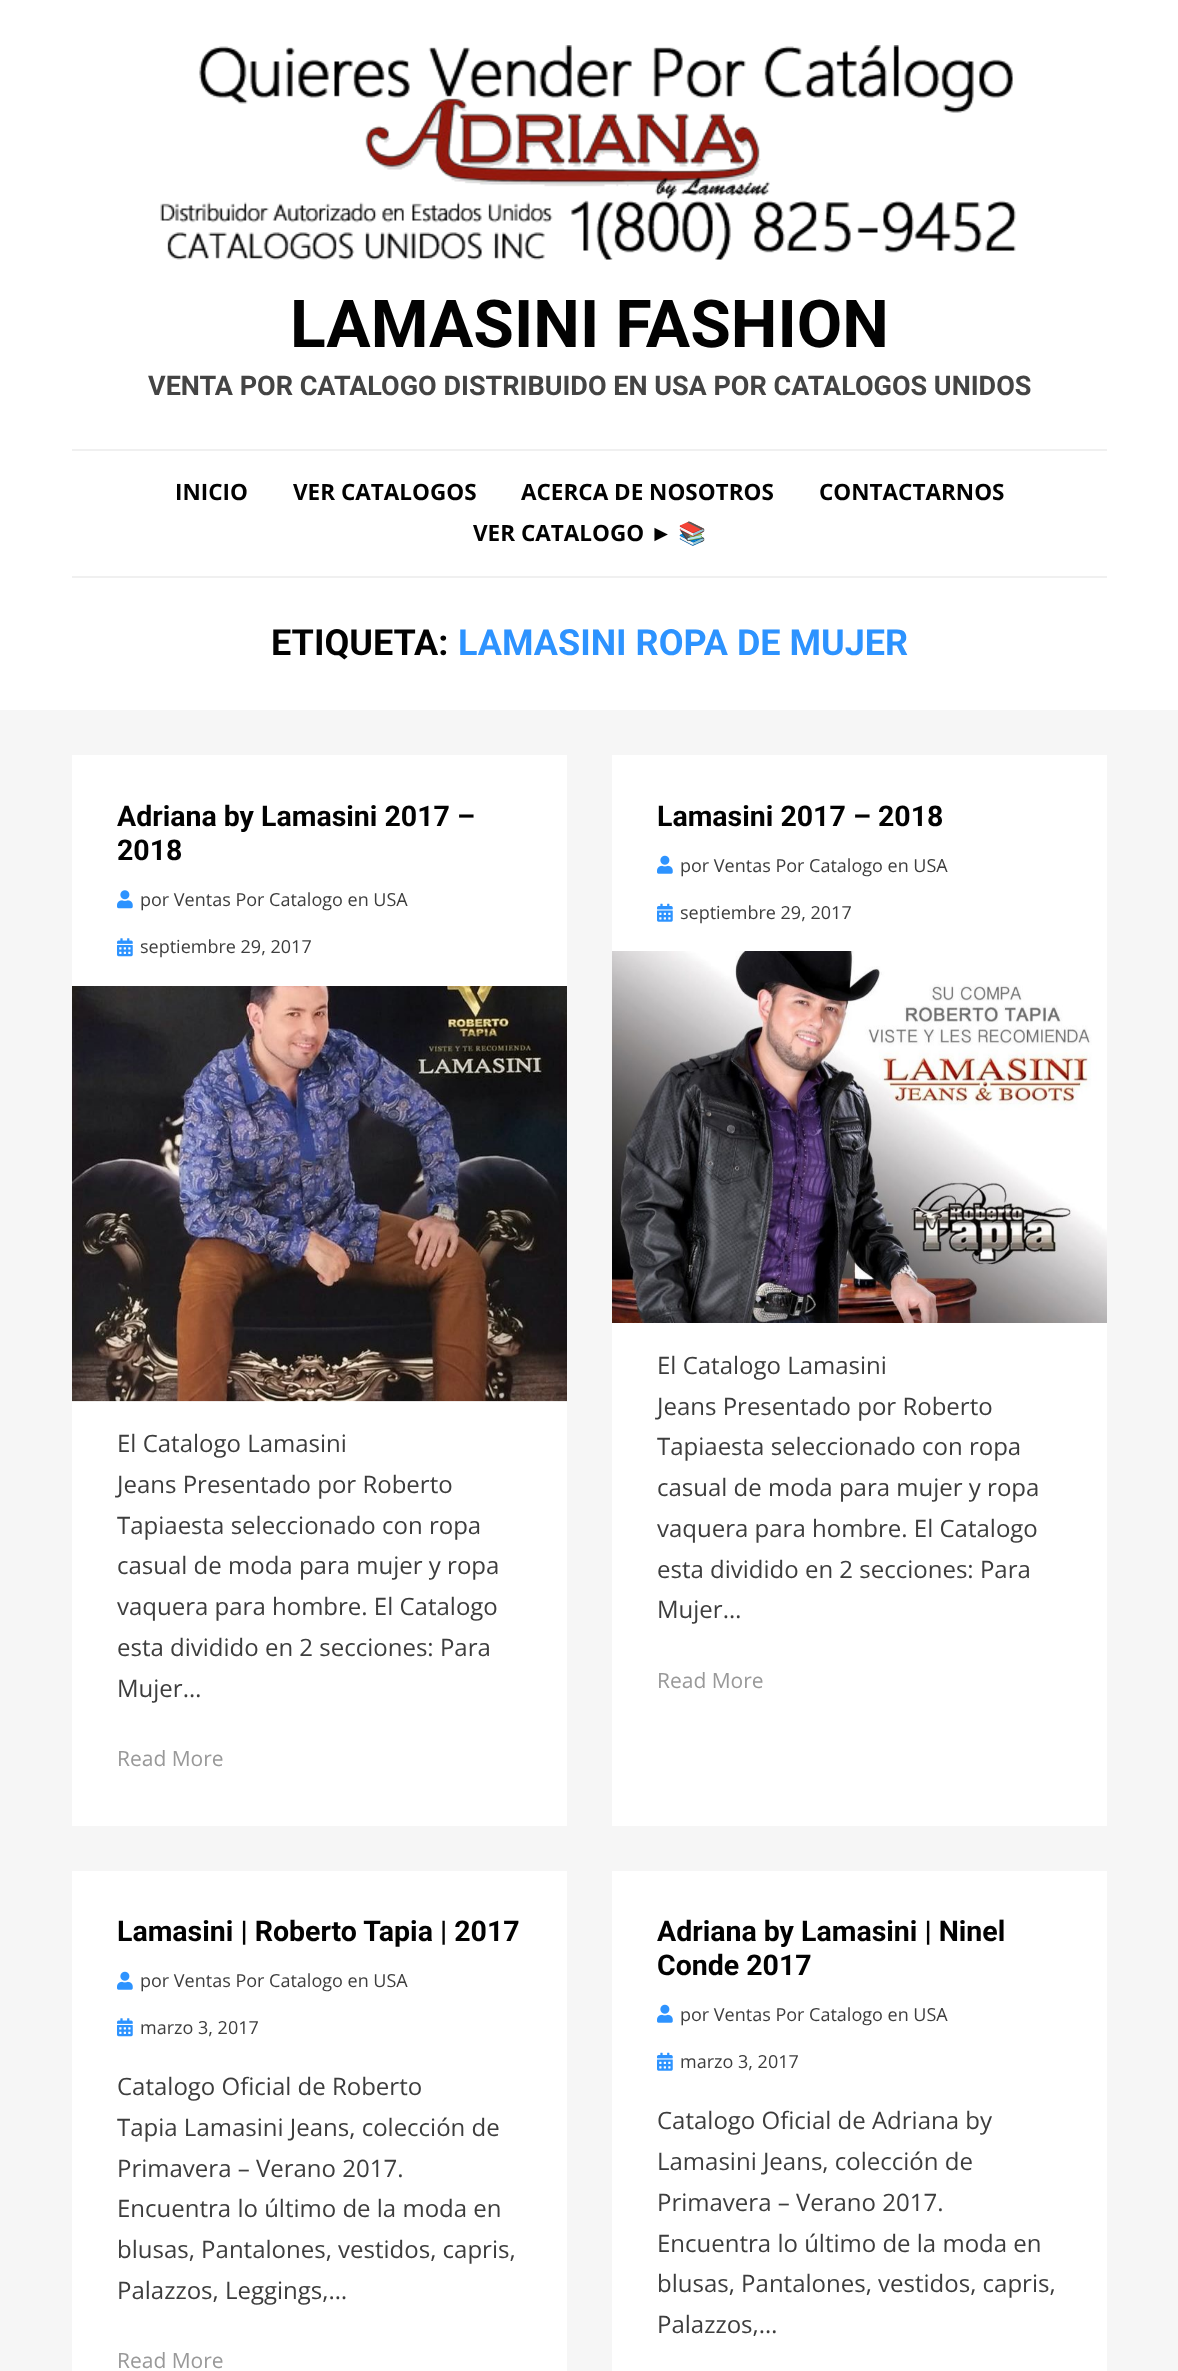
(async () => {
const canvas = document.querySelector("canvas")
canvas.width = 1178
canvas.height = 2371
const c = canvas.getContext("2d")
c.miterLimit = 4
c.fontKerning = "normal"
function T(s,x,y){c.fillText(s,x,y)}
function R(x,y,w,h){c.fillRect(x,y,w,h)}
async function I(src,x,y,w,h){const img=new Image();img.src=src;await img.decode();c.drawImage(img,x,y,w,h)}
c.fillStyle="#f6f6f6"
R(0,0,1178,2371)
c.fillStyle="#fff"
R(0,0,1178,710)
await I("1.png",160,45,856,215)
c.font="bold 66px Roboto"
c.fillStyle="#020202"
T("LAMASINI FASHION",290,347)
c.font="bold 27px Roboto"
c.fillStyle="#444"
T("VENTA POR CATALOGO DISTRIBUIDO EN USA POR CATALOGOS UNIDOS",148,395)
c.fillStyle="#f0f0f0"
R(72,449,1035,2)
R(72,576,1035,2)
c.font="bold 22.5px Open Sans"
c.fillStyle="#020202"
T("INICIO",175,500)
T("VER CATALOGOS",293,500)
T("ACERCA DE NOSOTROS",521,500)
T("CONTACTARNOS",819,500)
T("VER CATALOGO",473,541)
c.font="bold 22.5px Liberation Sans"
T("►",650,541)
c.font="bold 22.5px Noto Color Emoji"
T("📚",678,541)
c.font="bold 36px Roboto"
T("ETIQUETA:",271,655)
c.fillStyle="#2d93ff"
T("LAMASINI ROPA DE MUJER",458,655)
c.fillStyle="#fff"
R(72,755,495,1071)
c.font="bold 28.5px Roboto"
c.fillStyle="#020202"
T("Adriana by Lamasini 2017 –",117,826)
T("2018",117,860)
await I("2.png",117,890,16,19)
c.font="18px Open Sans"
c.fillStyle="#3d3d3d"
T("por Ventas Por Catalogo en USA",140,906)
await I("3.png",117,938,16,19)
T("septiembre 29, 2017",140,953)
await I("4.png",72,986,495,416)
c.font="24px Open Sans"
T("El Catalogo Lamasini",117,1452)
T("Jeans Presentado por Roberto",117,1493)
T("Tapiaesta seleccionado con ropa",117,1534)
T("casual de moda para mujer y ropa",117,1574)
T("vaquera para hombre. El Catalogo",117,1615)
T("esta dividido en 2 secciones: Para",117,1656)
T("Mujer…",117,1697)
c.font="21px Open Sans"
c.fillStyle="#999"
T("Read More",117,1766)
c.fillStyle="#fff"
R(612,755,495,1071)
c.font="bold 28.5px Roboto"
c.fillStyle="#020202"
T("Lamasini 2017 – 2018",657,826)
await I("5.png",657,855,16,19)
c.font="18px Open Sans"
c.fillStyle="#3d3d3d"
T("por Ventas Por Catalogo en USA",680,872)
await I("6.png",657,903,16,19)
T("septiembre 29, 2017",680,919)
await I("7.png",612,951,495,372)
c.font="24px Open Sans"
T("El Catalogo Lamasini",657,1374)
T("Jeans Presentado por Roberto",657,1415)
T("Tapiaesta seleccionado con ropa",657,1455)
T("casual de moda para mujer y ropa",657,1496)
T("vaquera para hombre. El Catalogo",657,1537)
T("esta dividido en 2 secciones: Para",657,1578)
T("Mujer…",657,1618)
c.font="21px Open Sans"
c.fillStyle="#999"
T("Read More",657,1688)
c.fillStyle="#fff"
R(72,1871,495,500)
c.font="bold 28.5px Roboto"
c.fillStyle="#020202"
T("Lamasini | Roberto Tapia | 2017",117,1941)
await I("5.png",117,1971,16,19)
c.font="18px Open Sans"
c.fillStyle="#3d3d3d"
T("por Ventas Por Catalogo en USA",140,1987)
await I("3.png",117,2018,16,19)
T("marzo 3, 2017",140,2034)
c.font="24px Open Sans"
T("Catalogo Oficial de Roberto",117,2095)
T("Tapia Lamasini Jeans, colección de",117,2136)
T("Primavera – Verano 2017.",117,2177)
T("Encuentra lo último de la moda en",117,2217)
T("blusas, Pantalones, vestidos, capris,",117,2258)
T("Palazzos, Leggings,…",117,2299)
c.font="21px Open Sans"
c.fillStyle="#999"
T("Read More",117,2368)
c.fillStyle="#fff"
R(612,1871,495,500)
c.font="bold 28.5px Roboto"
c.fillStyle="#020202"
T("Adriana by Lamasini | Ninel",657,1941)
T("Conde 2017",657,1975)
await I("5.png",657,2004,16,19)
c.font="18px Open Sans"
c.fillStyle="#3d3d3d"
T("por Ventas Por Catalogo en USA",680,2021)
await I("6.png",657,2052,16,19)
T("marzo 3, 2017",680,2068)
c.font="24px Open Sans"
T("Catalogo Oficial de Adriana by",657,2129)
T("Lamasini Jeans, colección de",657,2170)
T("Primavera – Verano 2017.",657,2211)
T("Encuentra lo último de la moda en",657,2252)
T("blusas, Pantalones, vestidos, capris,",657,2292)
T("Palazzos,…",657,2333)
})()
